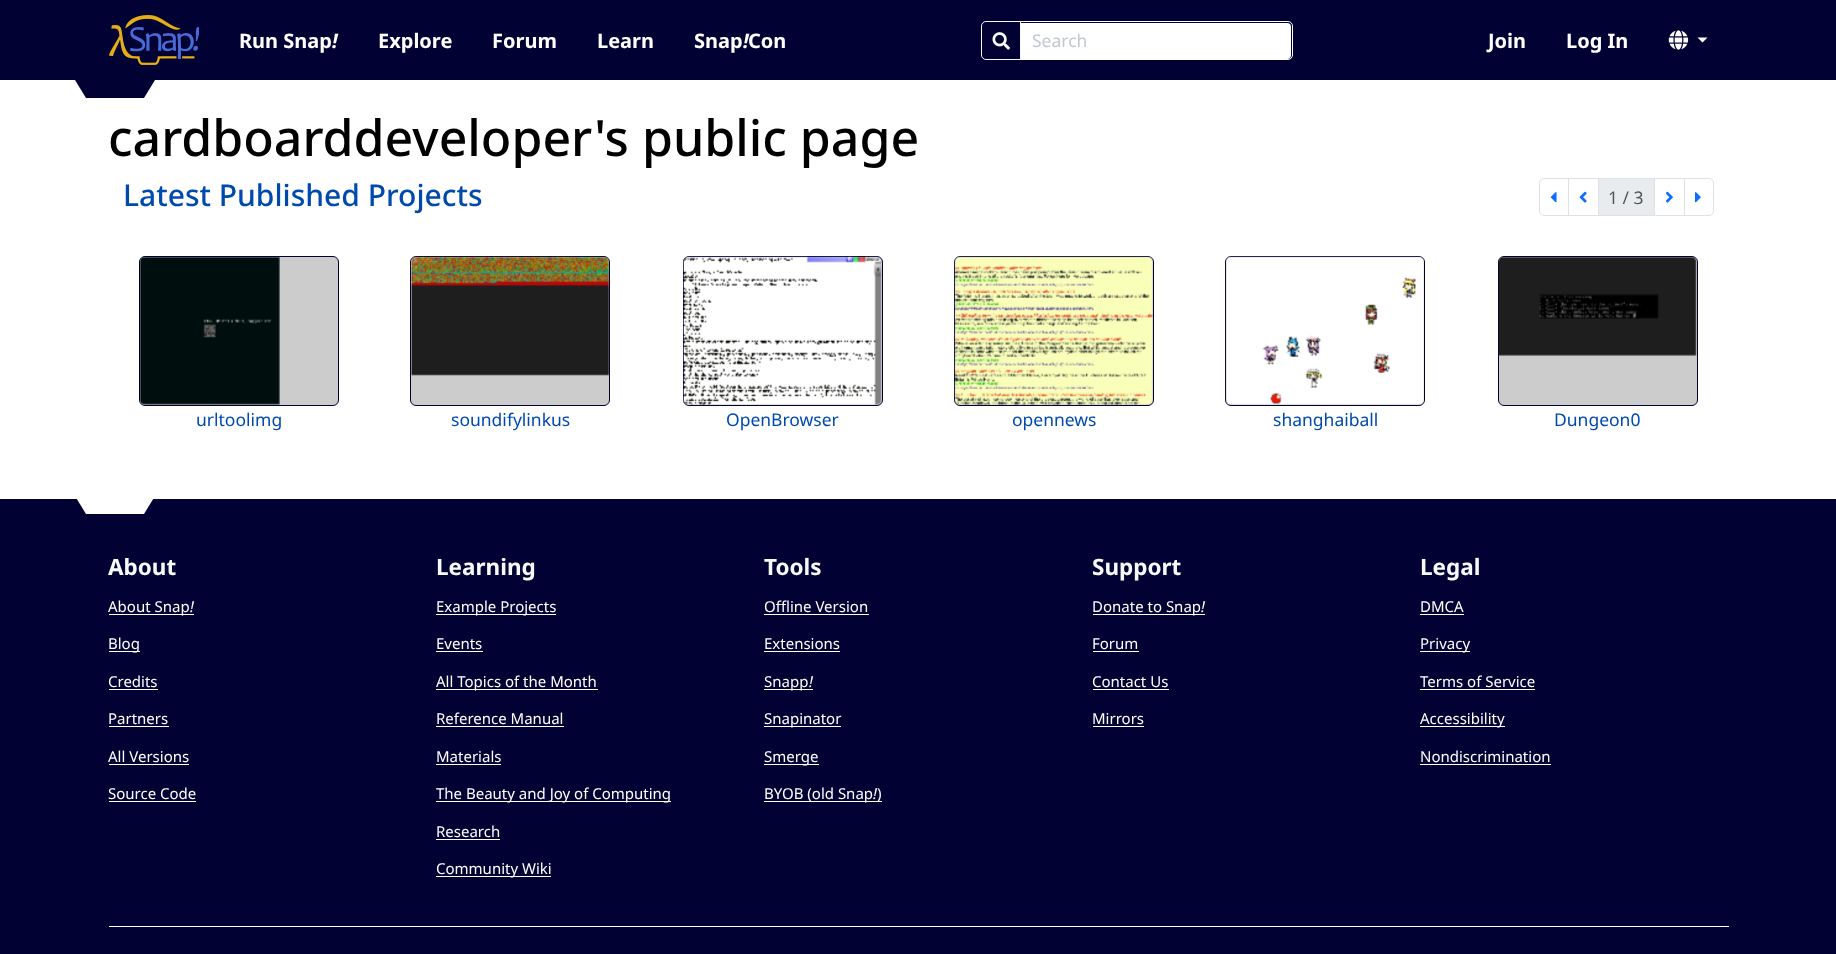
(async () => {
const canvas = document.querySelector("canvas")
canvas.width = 1836
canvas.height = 954
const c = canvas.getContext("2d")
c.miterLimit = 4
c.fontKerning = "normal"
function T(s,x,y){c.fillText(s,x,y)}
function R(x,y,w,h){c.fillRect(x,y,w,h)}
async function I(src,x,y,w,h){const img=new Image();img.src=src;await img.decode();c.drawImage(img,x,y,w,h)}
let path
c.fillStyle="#fff"
R(0,0,1836,954)
c.fillStyle="#010133"
R(0,0,1836,80)
await I("1.png",109,15,90,50)
c.font="bold 20px Noto Sans"
c.fillStyle="#fff"
T("Run Snap",239,48)
c.font="italic bold 20px Noto Sans"
T("!",332,48)
c.font="bold 20px Noto Sans"
T("Explore",378,48)
T("Forum",492,48)
T("Learn",597,48)
T("Snap",694,48)
c.font="italic bold 20px Noto Sans"
T("!",743,48)
c.font="bold 20px Noto Sans"
T("Con",748,48)
c.beginPath()
c.roundRect(1021,23,270,36,[0,4,4,0])
c.fill()
c.beginPath()
c.roundRect(1020.5,21.5,272,38,[0,4.5,4.5,0])
c.strokeStyle="#fff"
c.stroke()
c.beginPath()
c.roundRect(981.5,21.5,39,38,[4.5,0,0,4.5])
c.strokeStyle="#f8f9fa"
c.stroke()
await I("2.png",992,32,18,18)
c.font="17.5px Noto Sans"
c.fillStyle="#c2c8ce"
T("Search",1032,47)
c.font="bold 20px Noto Sans"
c.fillStyle="#fff"
T("Join",1488,48)
T("Log In",1566,48)
await I("3.png",1668,30,21,20)
path = new Path2D("M1697.5 37.5h10l-5 5z")
c.fill(path)
c.fillStyle="#010133"
path = new Path2D("M75 80h80l-11 18h-58z")
c.fill(path)
c.font="500 50px Noto Sans"
c.fillStyle="#000"
T("cardboarddeveloper's public page",108,156)
c.font="500 30px Noto Sans"
c.fillStyle="#004aae"
T("Latest Published Projects",123,206)
c.beginPath()
c.roundRect(1539.5,178.5,29,37,[4.5,0,0,4.5])
c.strokeStyle="#dee2e6"
c.stroke()
await I("4.png",1550,192,7,11)
c.strokeRect(1568.5,178.5,30,37)
await I("5.png",1579,191,8,12)
c.fillStyle="#e9ecef"
c.beginPath()
c.rect(1598.5,178.5,56,37)
c.fill()
c.stroke()
c.font="17.5px Noto Sans"
c.fillStyle="#53575b"
T("1 / 3",1608,204)
c.strokeRect(1654.5,178.5,30,37)
await I("6.png",1665,191,8,12)
c.fillStyle="#fff"
c.beginPath()
c.roundRect(1684.5,178.5,29,37,[0,4.5,4.5,0])
c.fill()
c.stroke()
await I("7.png",1695,192,6,11)
c.fillStyle="#ccc"
c.beginPath()
c.roundRect(139.5,256.5,199,149,5.5)
c.fill()
c.strokeStyle="#010133"
c.stroke()
await I("8.png",139,256,141,149)
c.fillStyle="#004aae"
T("urltoolimg",196,426)
c.fillStyle="#ccc"
c.beginPath()
c.roundRect(410.5,256.5,199,149,5.5)
c.fill()
c.stroke()
await I("9.png",410,256,199,120)
c.fillStyle="#004aae"
T("soundifylinkus",451,426)
c.fillStyle="#ccc"
c.beginPath()
c.roundRect(683.5,256.5,199,149,5.5)
c.fill()
c.stroke()
await I("10.png",683,256,199,149)
c.fillStyle="#004aae"
T("OpenBrowser",726,426)
c.fillStyle="#ccc"
c.beginPath()
c.roundRect(954.5,256.5,199,149,5.5)
c.fill()
c.stroke()
await I("11.png",954,256,199,149)
c.fillStyle="#004aae"
T("opennews",1012,426)
c.fillStyle="#ccc"
c.beginPath()
c.roundRect(1225.5,256.5,199,149,5.5)
c.fill()
c.stroke()
await I("12.png",1225,256,199,149)
c.fillStyle="#004aae"
T("shanghaiball",1273,426)
c.fillStyle="#ccc"
c.beginPath()
c.roundRect(1498.5,256.5,199,149,5.5)
c.fill()
c.stroke()
await I("13.png",1498,256,199,100)
c.fillStyle="#004aae"
T("Dungeon0",1554,426)
c.fillStyle="#010133"
R(0,499,1836,455)
c.fillStyle="#fff"
path = new Path2D("M75 496h80l-11 18h-58z")
c.fill(path)
c.font="bold 22.5px Noto Sans"
c.fillStyle="#f8f9fa"
T("About",108,575)
c.fillStyle="#fff"
R(109,614,85,1)
c.font="15px Noto Sans"
T("About Snap",108,612)
c.font="italic 15px Noto Sans"
T("!",190,612)
R(109,651,31,1)
c.font="15px Noto Sans"
T("Blog",108,649)
T("Credits",108,687)
R(109,689,49,1)
T("Partners",108,724)
R(109,726,60,1)
T("All Versions",108,762)
R(109,764,80,1)
T("Source Code",108,799)
R(109,801,87,1)
c.font="bold 22.5px Noto Sans"
c.fillStyle="#f8f9fa"
T("Learning",436,575)
c.fillStyle="#fff"
R(436,614,120,1)
c.font="15px Noto Sans"
T("Example Projects",436,612)
T("Events",436,649)
R(436,651,47,1)
R(436,689,162,1)
T("All Topics of the Month",436,687)
T("Reference Manual",436,724)
R(436,726,128,1)
T("Materials",436,762)
R(436,764,65,1)
R(436,801,235,1)
T("The Beauty and Joy of Computing",436,799)
T("Research",436,837)
R(436,839,64,1)
R(436,876,115,1)
T("Community Wiki",436,874)
c.font="bold 22.5px Noto Sans"
c.fillStyle="#f8f9fa"
T("Tools",764,575)
c.font="15px Noto Sans"
c.fillStyle="#fff"
T("Offline Version",764,612)
R(764,614,105,1)
T("Extensions",764,649)
R(764,651,76,1)
R(764,689,49,1)
T("Snapp",764,687)
c.font="italic 15px Noto Sans"
T("!",809,687)
R(764,726,77,1)
c.font="15px Noto Sans"
T("Snapinator",764,724)
R(764,764,55,1)
T("Smerge",764,762)
R(764,801,118,1)
T("BYOB (old Snap",764,799)
c.font="italic 15px Noto Sans"
T("!",873,799)
c.font="15px Noto Sans"
T(")",877,799)
c.font="bold 22.5px Noto Sans"
c.fillStyle="#f8f9fa"
T("Support",1092,575)
c.fillStyle="#fff"
R(1093,614,112,1)
c.font="15px Noto Sans"
T("Donate to Snap",1092,612)
c.font="italic 15px Noto Sans"
T("!",1201,612)
c.font="15px Noto Sans"
T("Forum",1092,649)
R(1093,651,46,1)
T("Contact Us",1092,687)
R(1093,689,76,1)
T("Mirrors",1092,724)
R(1093,726,51,1)
c.font="bold 22.5px Noto Sans"
c.fillStyle="#f8f9fa"
T("Legal",1420,575)
c.font="15px Noto Sans"
c.fillStyle="#fff"
T("DMCA",1420,612)
R(1420,614,44,1)
R(1420,651,50,1)
T("Privacy",1420,649)
T("Terms of Service",1420,687)
R(1420,689,115,1)
R(1420,726,85,1)
T("Accessibility",1420,724)
T("Nondiscrimination",1420,762)
R(1420,764,131,1)
R(109,926,1620,1)
})()
